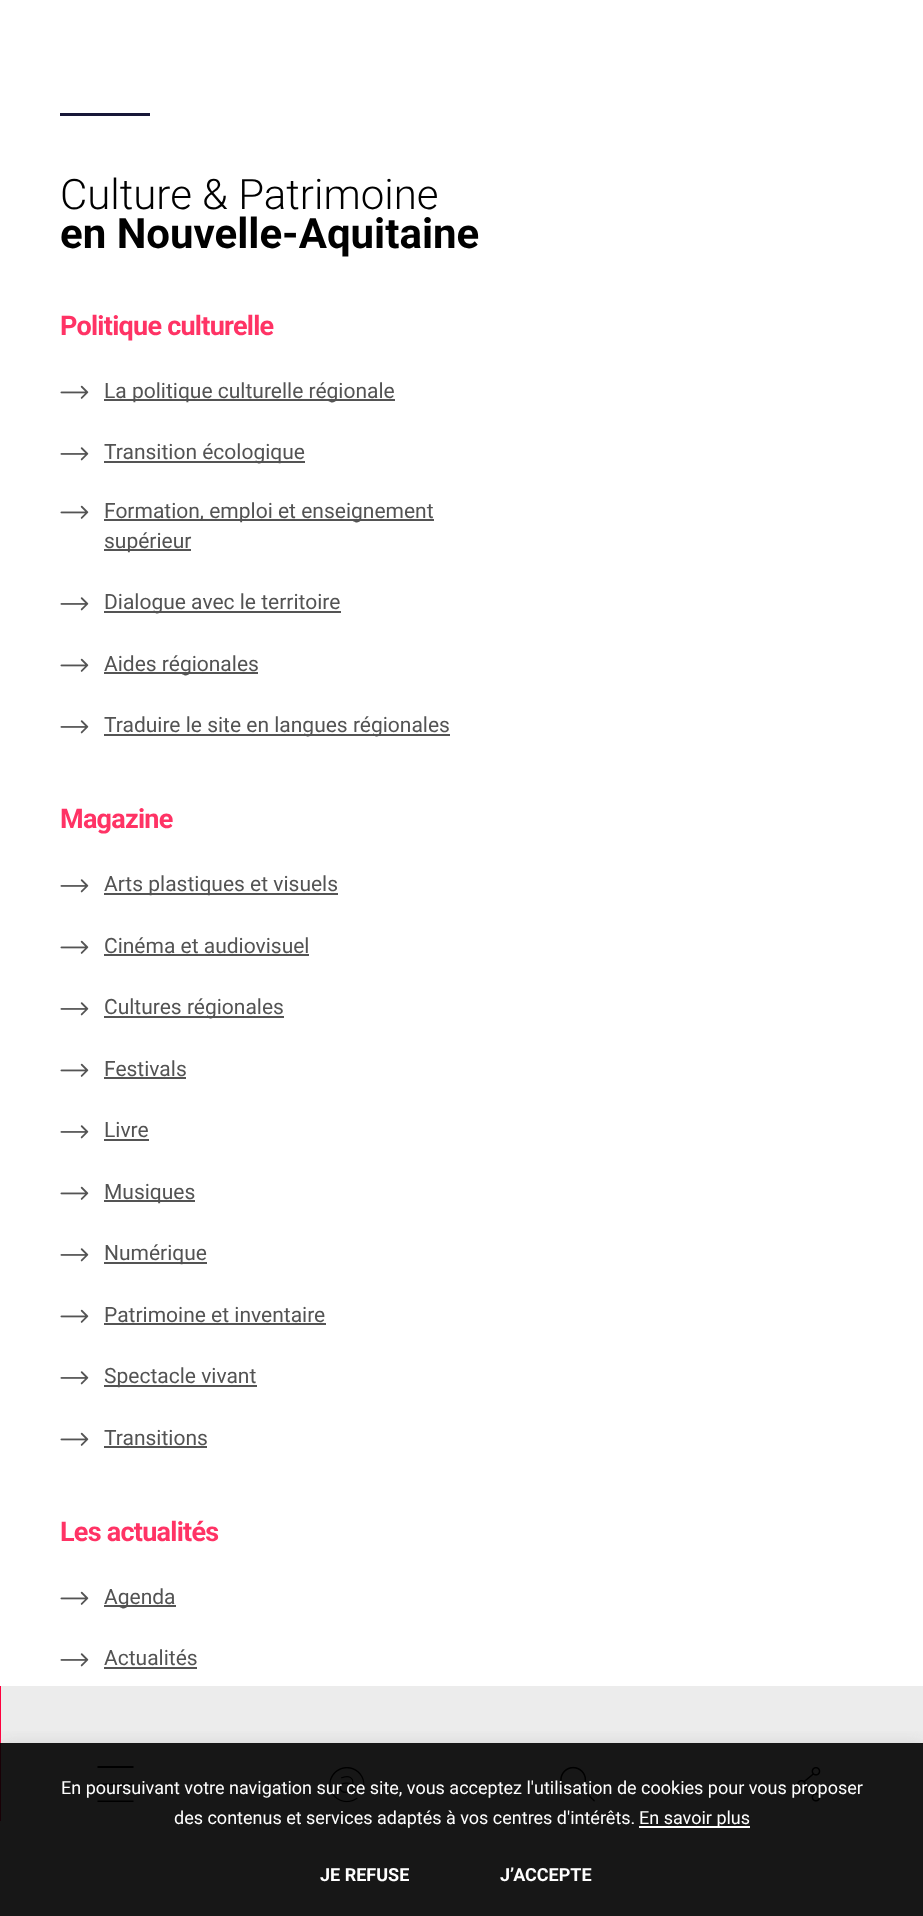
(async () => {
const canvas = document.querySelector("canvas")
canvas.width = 923
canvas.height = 1916
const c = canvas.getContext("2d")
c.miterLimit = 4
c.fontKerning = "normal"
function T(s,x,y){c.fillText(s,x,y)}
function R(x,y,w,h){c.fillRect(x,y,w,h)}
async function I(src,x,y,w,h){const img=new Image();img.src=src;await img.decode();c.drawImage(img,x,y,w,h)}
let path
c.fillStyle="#fff"
R(0,0,923,1916)
c.fillStyle="#171738"
R(60,113,90,3)
c.font="300 42px Roboto"
c.fillStyle="#000"
T("Culture & Patrimoine",60,209)
c.font="bold 42px Roboto"
T("en Nouvelle-Aquitaine",60,248)
c.letterSpacing="-0.75px"
c.font="bold 27px Roboto"
c.fillStyle="#ff3365"
T("Politique culturelle",60,335)
await I("1.png",60,385,29,14)
c.fillStyle="#545454"
R(104,399,291,2)
c.letterSpacing="0px"
c.font="21px Roboto"
c.fillStyle="#535353"
T("La politique culturelle régionale",104,398)
await I("2.png",60,447,29,14)
c.fillStyle="#545454"
R(104,461,201,2)
c.fillStyle="#535353"
T("Transition écologique",104,459)
await I("1.png",60,505,29,14)
c.fillStyle="#545454"
R(104,519,330,2)
c.fillStyle="#535353"
T("Formation, emploi et enseignement",104,518)
c.fillStyle="#545454"
R(104,549,87,2)
c.fillStyle="#535353"
T("supérieur",104,548)
await I("2.png",60,597,29,14)
c.fillStyle="#545454"
R(104,611,237,2)
c.fillStyle="#535353"
T("Dialogue avec le territoire",104,609)
await I("1.png",60,658,29,14)
c.fillStyle="#545454"
R(104,672,154,2)
c.fillStyle="#535353"
T("Aides régionales",104,671)
await I("2.png",60,720,29,14)
c.fillStyle="#545454"
R(104,734,346,2)
c.fillStyle="#535353"
T("Traduire le site en langues régionales",104,732)
c.letterSpacing="-0.75px"
c.font="bold 27px Roboto"
c.fillStyle="#ff3365"
T("Magazine",60,828)
await I("2.png",60,879,29,14)
c.fillStyle="#545454"
R(104,893,234,2)
c.letterSpacing="0px"
c.font="21px Roboto"
c.fillStyle="#535353"
T("Arts plastiques et visuels",104,891)
await I("1.png",60,940,29,14)
T("Cinéma et audiovisuel",104,953)
c.fillStyle="#545454"
R(104,954,205,2)
await I("2.png",60,1002,29,14)
R(104,1016,180,2)
c.fillStyle="#535353"
T("Cultures régionales",104,1014)
await I("1.png",60,1063,29,14)
T("Festivals",104,1076)
c.fillStyle="#545454"
R(104,1077,82,2)
await I("2.png",60,1125,29,14)
c.fillStyle="#535353"
T("Livre",104,1137)
c.fillStyle="#545454"
R(104,1139,45,2)
await I("1.png",60,1186,29,14)
R(104,1200,91,2)
c.fillStyle="#535353"
T("Musiques",104,1199)
await I("2.png",60,1248,29,14)
c.fillStyle="#545454"
R(104,1262,103,2)
c.fillStyle="#535353"
T("Numérique",104,1260)
await I("1.png",60,1309,29,14)
T("Patrimoine et inventaire",104,1322)
c.fillStyle="#545454"
R(104,1323,222,2)
await I("2.png",60,1371,29,14)
R(104,1385,153,2)
c.fillStyle="#535353"
T("Spectacle vivant",104,1383)
await I("1.png",60,1432,29,14)
T("Transitions",104,1445)
c.fillStyle="#545454"
R(104,1446,103,2)
c.letterSpacing="-0.75px"
c.font="bold 27px Roboto"
c.fillStyle="#ff3365"
T("Les actualités",60,1541)
await I("1.png",60,1591,29,14)
c.fillStyle="#545454"
R(104,1605,72,2)
c.letterSpacing="0px"
c.font="21px Roboto"
c.fillStyle="#535353"
T("Agenda",104,1604)
await I("2.png",60,1653,29,14)
T("Actualités",104,1665)
c.fillStyle="#545454"
R(104,1667,93,2)
c.fillStyle="#ececec"
R(0,1686,923,230)
c.fillStyle="#ff003e"
R(0,1686,1,135)
c.fillStyle="#000"
path = new Path2D("M97.5 1766h36v2h-36zm0 34.5h36v1.5h-36zm0-17h36v1.5h-36z")
c.fill(path)
await I("3.png",329,1766,36,37)
await I("4.png",560,1766,35,36)
await I("5.png",797,1767,24,35)
c.save()
c.beginPath()
c.rect(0,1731,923,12)
c.clip()
c.fillStyle="#acabab4d"
c.filter="blur(7.5px)"
c.beginPath()
c.rect(0,1742,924,174)
c.fill()
c.filter="none"
c.restore()
c.fillStyle="#000000e6"
R(0,1743,923,173)
c.font="18px Roboto"
c.fillStyle="#fff"
T("En poursuivant votre navigation sur ce site, vous acceptez l'utilisation de cookies pour vous proposer",61,1794)
T("des contenus et services adaptés à vos centres d'intérêts.",174,1824)
R(639,1826,111,2)
T("En savoir plus",639,1824)
c.font="bold 18px Roboto"
T("JE REFUSE",320,1881)
T("J’ACCEPTE",500,1881)
})()
